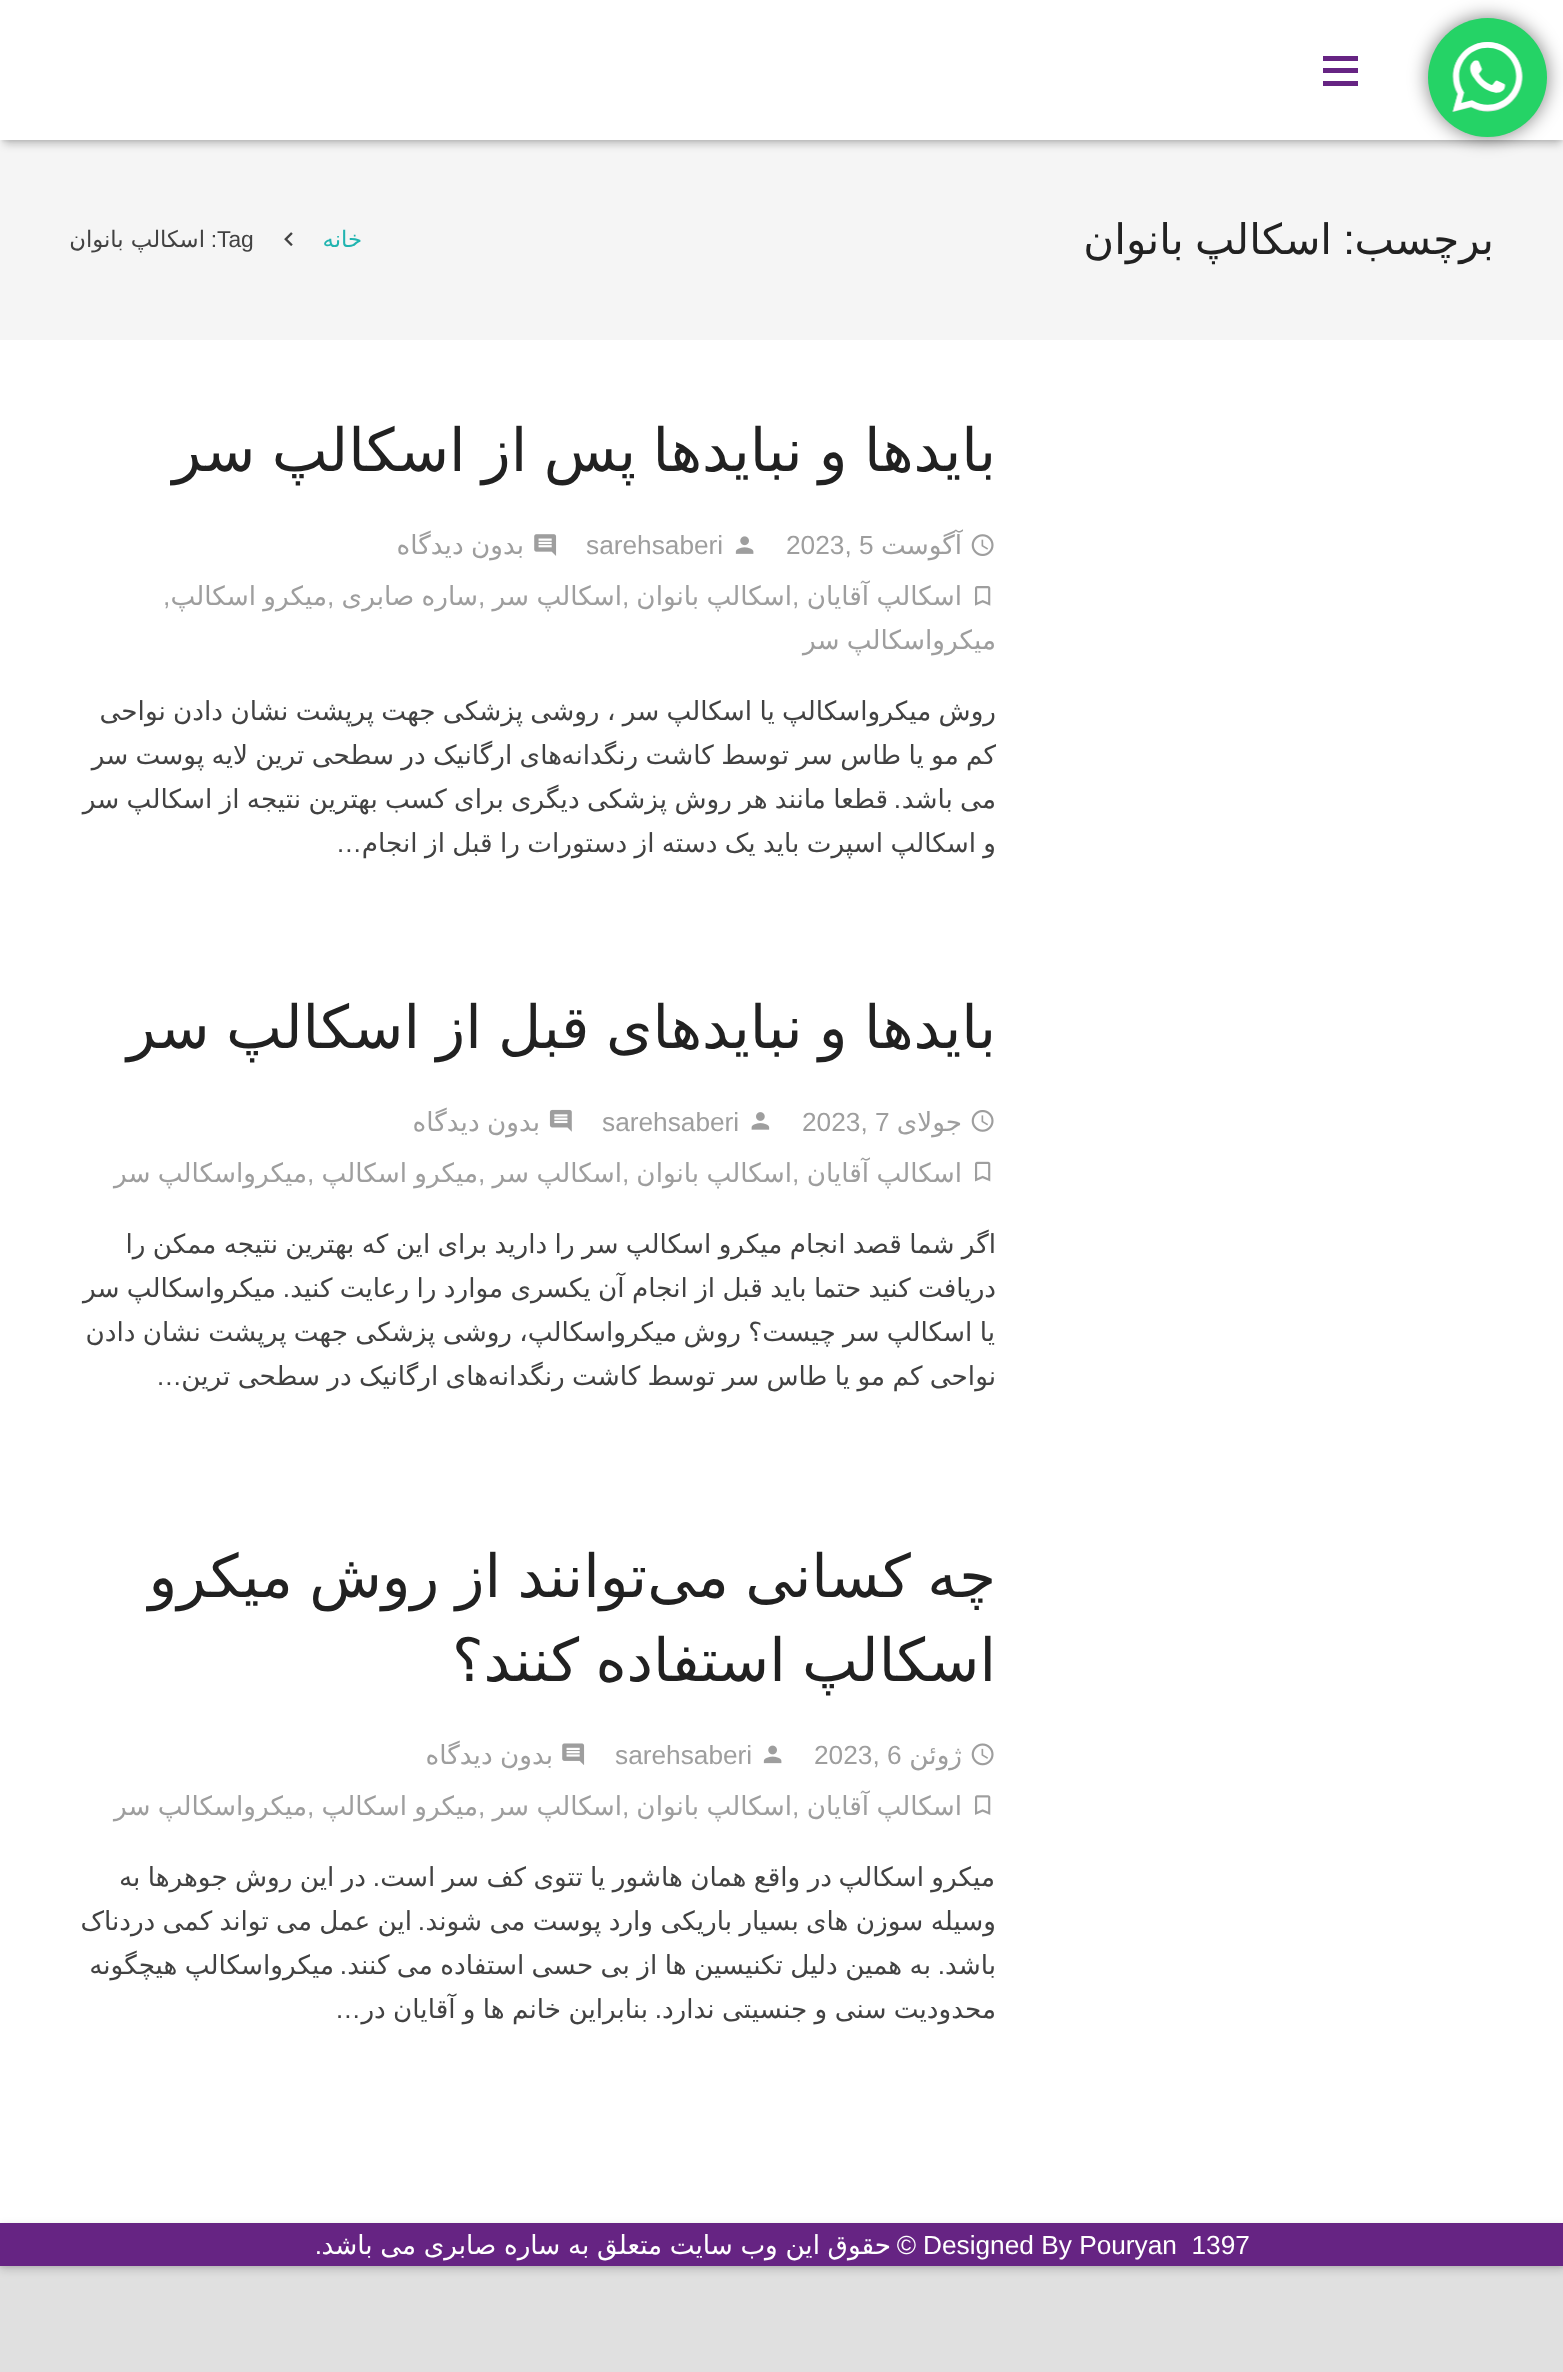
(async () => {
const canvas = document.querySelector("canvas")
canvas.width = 1563
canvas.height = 2372
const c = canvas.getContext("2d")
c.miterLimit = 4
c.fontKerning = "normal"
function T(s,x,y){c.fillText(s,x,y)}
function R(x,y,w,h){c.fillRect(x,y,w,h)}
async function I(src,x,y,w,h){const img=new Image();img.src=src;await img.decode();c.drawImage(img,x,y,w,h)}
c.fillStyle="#e0e0e0"
R(0,0,1563,2372)
c.fillStyle="#f5f5f5"
R(0,140,1563,200)
c.fillStyle="#0000000d"
c.filter="blur(1px)"
c.beginPath()
c.rect(2,5,1561,137)
c.fill()
c.filter="none"
c.fillStyle="#00000038"
c.filter="blur(4.5px)"
c.beginPath()
c.rect(4,11,1557,133)
c.fill()
c.filter="none"
c.fillStyle="#fff"
R(0,0,1563,140)
c.fillStyle="#00000080"
c.filter="blur(9.5px)"
c.beginPath()
c.roundRect(1428,18,119,119,59.5)
c.fill()
c.filter="none"
c.fillStyle="#25d366"
c.beginPath()
c.arc(1487.5,77.5,59.5,0,7)
c.fill()
await I("1.png",1452,42,71,70)
c.fillStyle="#fff"
R(0,340,1563,1883)
c.fillStyle="#662483"
R(1323,68,35,5)
R(1323,56,35,5)
R(1323,81,35,5)
c.direction="rtl"
c.font="42px DejaVu Sans"
c.fillStyle="#212121"
T("برچسب",1494,254)
c.font="42px Liberation Sans"
T(":",1355,254)
c.wordSpacing="-2px"
c.font="42px DejaVu Sans"
T("اسکالپ بانوان",1332,254)
c.wordSpacing="0px"
c.font="22.75px DejaVu Sans"
c.fillStyle="#20b4b0"
T("خانه",362,247)
await I("2.png",284,232,9,14)
c.direction="ltr"
c.font="22.75px Liberation Sans"
c.fillStyle="#424242"
T("Tag",217,247)
c.direction="rtl"
T(":",217,247)
c.font="22.75px DejaVu Sans"
T("اسکالپ بانوان",205,247)
c.wordSpacing="-2.5px"
c.font="59.5px DejaVu Sans"
c.fillStyle="#212121"
T("بایدها و نبایدها پس از اسکالپ سر",996,471)
await I("3.png",971,534,23,22)
c.wordSpacing="0px"
c.font="26.25px DejaVu Sans"
c.fillStyle="#9e9e9e"
T("آگوست",962,554)
c.direction="ltr"
c.font="26.25px Liberation Sans"
T("2023, 5",786,554)
await I("4.png",735,536,19,18)
T("sarehsaberi",586,554)
await I("5.png",534,534,23,22)
c.wordSpacing="-1px"
c.direction="rtl"
c.font="26.25px DejaVu Sans"
T("بدون دیدگاه",524,554)
await I("6.png",975,586,16,20)
T("اسکالپ آقایان",962,605)
c.wordSpacing="0px"
c.direction="ltr"
c.font="26.25px Liberation Sans"
T(",",792,605)
c.wordSpacing="-1px"
c.direction="rtl"
c.font="26.25px DejaVu Sans"
T("اسکالپ بانوان",792,605)
c.wordSpacing="0px"
c.direction="ltr"
c.font="26.25px Liberation Sans"
T(",",622,605)
c.wordSpacing="-1px"
c.direction="rtl"
c.font="26.25px DejaVu Sans"
T("اسکالپ سر",622,605)
c.wordSpacing="0px"
c.direction="ltr"
c.font="26.25px Liberation Sans"
T(",",478,605)
c.wordSpacing="-1px"
c.direction="rtl"
c.font="26.25px DejaVu Sans"
T("ساره صابری",478,605)
c.wordSpacing="0px"
c.direction="ltr"
c.font="26.25px Liberation Sans"
T(",",327,605)
c.wordSpacing="-1px"
c.direction="rtl"
c.font="26.25px DejaVu Sans"
T("میکرو اسکالپ",327,605)
c.wordSpacing="0px"
c.direction="ltr"
c.font="26.25px Liberation Sans"
T(",",163,605)
c.wordSpacing="-1px"
c.direction="rtl"
c.font="26.25px DejaVu Sans"
T("میکرواسکالپ سر",996,649)
c.fillStyle="#424242"
T("روش میکرواسکالپ یا اسکالپ سر ، روشی پزشکی جهت پرپشت نشان دادن نواحی",996,720)
T("کم مو یا طاس سر توسط کاشت رنگدانه",996,764)
T("های ارگانیک در سطحی ترین لایه پوست سر",562,764)
T("می باشد",996,808)
c.wordSpacing="0px"
c.font="26.25px Liberation Sans"
T(".",901,808)
c.wordSpacing="-1px"
c.font="26.25px DejaVu Sans"
T("قطعا مانند هر روش پزشکی دیگری برای کسب بهترین",888,808)
T("نتیجه از اسکالپ سر",301,808)
T("و اسکالپ اسپرت باید یک دسته از دستورات را قبل از انجام",996,852)
c.wordSpacing="0px"
c.font="26.25px Liberation Sans"
T("…",362,852)
c.wordSpacing="-2.5px"
c.font="59.5px DejaVu Sans"
c.fillStyle="#212121"
T("بایدها و نبایدهای قبل از اسکالپ سر",996,1048)
await I("7.png",971,1110,23,22)
c.wordSpacing="0px"
c.font="26.25px DejaVu Sans"
c.fillStyle="#9e9e9e"
T("جولای",962,1131)
c.direction="ltr"
c.font="26.25px Liberation Sans"
T("2023, 7",802,1131)
await I("8.png",751,1112,19,18)
T("sarehsaberi",602,1131)
await I("9.png",549,1109,23,23)
c.wordSpacing="-1px"
c.direction="rtl"
c.font="26.25px DejaVu Sans"
T("بدون دیدگاه",540,1131)
await I("10.png",975,1161,16,21)
T("اسکالپ آقایان",962,1182)
c.wordSpacing="0px"
c.direction="ltr"
c.font="26.25px Liberation Sans"
T(",",792,1182)
c.wordSpacing="-1px"
c.direction="rtl"
c.font="26.25px DejaVu Sans"
T("اسکالپ بانوان",792,1182)
c.wordSpacing="0px"
c.direction="ltr"
c.font="26.25px Liberation Sans"
T(",",622,1182)
c.wordSpacing="-1px"
c.direction="rtl"
c.font="26.25px DejaVu Sans"
T("اسکالپ سر",622,1182)
c.wordSpacing="0px"
c.direction="ltr"
c.font="26.25px Liberation Sans"
T(",",478,1182)
c.wordSpacing="-1px"
c.direction="rtl"
c.font="26.25px DejaVu Sans"
T("میکرو اسکالپ",478,1182)
c.wordSpacing="0px"
c.direction="ltr"
c.font="26.25px Liberation Sans"
T(",",307,1182)
c.wordSpacing="-1px"
c.direction="rtl"
c.font="26.25px DejaVu Sans"
T("میکرواسکالپ سر",307,1182)
c.fillStyle="#424242"
T("اگر شما قصد انجام میکرو اسکالپ سر را دارید برای این که بهترین نتیجه ممکن را",996,1253)
T("دریافت کنید حتما باید قبل از انجام آن یکسری موارد را رعایت کنید",996,1297)
c.wordSpacing="0px"
c.font="26.25px Liberation Sans"
T(".",290,1297)
c.wordSpacing="-1px"
c.font="26.25px DejaVu Sans"
T("میکرواسکالپ سر",276,1297)
T("یا اسکالپ سر چیست؟ روش",995,1341)
T("میکرواسکالپ، روشی پزشکی جهت پرپشت نشان دادن",677,1341)
T("نواحی کم مو یا طاس سر توسط کاشت رنگدانه",996,1385)
T("های ارگانیک در سطحی ترین",488,1385)
c.wordSpacing="0px"
c.font="26.25px Liberation Sans"
T("…",182,1385)
c.wordSpacing="-2.5px"
c.font="59.5px DejaVu Sans"
c.fillStyle="#212121"
T("چه کسانی می",996,1597)
T("توانند از روش میکرو",647,1597)
T("اسکالپ استفاده کنند؟",996,1681)
await I("11.png",971,1743,23,23)
c.wordSpacing="0px"
c.font="26.25px DejaVu Sans"
c.fillStyle="#9e9e9e"
T("ژوئن",962,1764)
c.direction="ltr"
c.font="26.25px Liberation Sans"
T("2023, 6",814,1764)
await I("12.png",763,1745,19,19)
T("sarehsaberi",615,1764)
await I("13.png",562,1743,23,22)
c.wordSpacing="-1px"
c.direction="rtl"
c.font="26.25px DejaVu Sans"
T("بدون دیدگاه",553,1764)
await I("14.png",975,1795,16,20)
T("اسکالپ آقایان",962,1815)
c.wordSpacing="0px"
c.direction="ltr"
c.font="26.25px Liberation Sans"
T(",",792,1815)
c.wordSpacing="-1px"
c.direction="rtl"
c.font="26.25px DejaVu Sans"
T("اسکالپ بانوان",792,1815)
c.wordSpacing="0px"
c.direction="ltr"
c.font="26.25px Liberation Sans"
T(",",622,1815)
c.wordSpacing="-1px"
c.direction="rtl"
c.font="26.25px DejaVu Sans"
T("اسکالپ سر",622,1815)
c.wordSpacing="0px"
c.direction="ltr"
c.font="26.25px Liberation Sans"
T(",",478,1815)
c.wordSpacing="-1px"
c.direction="rtl"
c.font="26.25px DejaVu Sans"
T("میکرو اسکالپ",478,1815)
c.wordSpacing="0px"
c.direction="ltr"
c.font="26.25px Liberation Sans"
T(",",307,1815)
c.wordSpacing="-1px"
c.direction="rtl"
c.font="26.25px DejaVu Sans"
T("میکرواسکالپ سر",307,1815)
c.fillStyle="#424242"
T("میکرو اسکالپ",995,1886)
T("در واقع همان هاشور یا تتوی کف سر است",832,1886)
c.wordSpacing="0px"
c.font="26.25px Liberation Sans"
T(".",380,1886)
c.wordSpacing="-1px"
c.font="26.25px DejaVu Sans"
T("در این روش جوهرها به",366,1886)
T("وسیله سوزن های بسیار باریکی وارد پوست می شوند",996,1930)
c.wordSpacing="0px"
c.font="26.25px Liberation Sans"
T(".",425,1930)
c.wordSpacing="-1px"
c.font="26.25px DejaVu Sans"
T("این عمل می تواند کمی دردناک",412,1930)
c.wordSpacing="0px"
T("باشد",996,1974)
c.font="26.25px Liberation Sans"
T(".",945,1974)
c.wordSpacing="-0.9px"
c.font="26.25px DejaVu Sans"
T("به همین دلیل تکنیسین ها از بی حسی استفاده می کنند",931,1974)
c.wordSpacing="0px"
c.font="26.25px Liberation Sans"
T(".",347,1974)
c.wordSpacing="-0.9px"
c.font="26.25px DejaVu Sans"
T("میکرواسکالپ هیچگونه",334,1974)
c.wordSpacing="-1px"
T("محدودیت سنی و جنسیتی ندارد",996,2018)
c.wordSpacing="0px"
c.font="26.25px Liberation Sans"
T(".",662,2018)
c.wordSpacing="-1px"
c.font="26.25px DejaVu Sans"
T("بنابراین خانم ها و آقایان در",648,2018)
c.wordSpacing="0px"
c.font="26.25px Liberation Sans"
T("…",361,2018)
c.fillStyle="#00000026"
c.filter="blur(4.5px)"
c.beginPath()
c.rect(0,2226,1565,44)
c.fill()
c.filter="none"
c.fillStyle="#0000000d"
c.filter="blur(1px)"
c.beginPath()
c.rect(0,2224,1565,44)
c.fill()
c.filter="none"
c.fillStyle="#662483"
R(0,2223,1563,43)
c.direction="ltr"
c.fillStyle="#fff"
T("Designed By Pouryan  1397",923,2254)
c.direction="rtl"
T("©",916,2254)
c.wordSpacing="-0.75px"
c.font="26.25px DejaVu Sans"
T("حقوق این وب سایت متعلق به ساره صابری می باشد",891,2254)
c.wordSpacing="0px"
c.font="26.25px Liberation Sans"
T(".",322,2254)
})()
